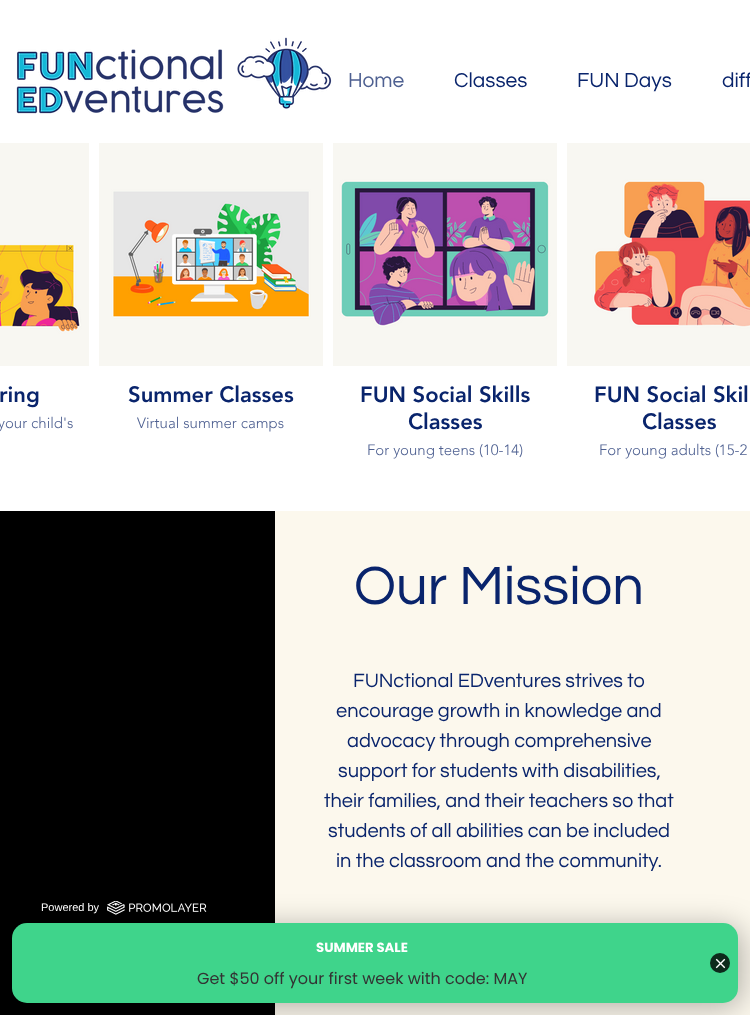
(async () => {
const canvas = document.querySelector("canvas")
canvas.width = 750
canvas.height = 1015
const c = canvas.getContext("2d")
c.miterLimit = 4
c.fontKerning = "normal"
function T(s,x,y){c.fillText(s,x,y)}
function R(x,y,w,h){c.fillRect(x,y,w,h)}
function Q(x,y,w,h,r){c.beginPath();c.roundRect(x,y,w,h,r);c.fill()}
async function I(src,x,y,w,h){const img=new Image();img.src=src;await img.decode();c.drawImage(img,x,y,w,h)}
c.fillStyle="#fff"
R(0,0,750,1015)
await I("1.png",16,49,208,65)
await I("2.png",237,37,95,72)
c.font="21px Questrial"
c.fillStyle="#4e6091"
T("Home",348,87)
c.fillStyle="#09246c"
T("Classes",454,87)
T("FUN Days",577,87)
T("diff",722,87)
await I("3.png",0,143,89,223)
c.font="900 22px 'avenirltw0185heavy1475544'"
T("ring",-1,402)
c.font="300 15px 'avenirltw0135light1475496'"
c.fillStyle="#4e6091"
T("your child's",-2,428)
await I("4.png",99,143,224,223)
c.font="900 22px 'avenirltw0185heavy1475544'"
c.fillStyle="#09246c"
T("Summer Classes",128,402)
c.font="300 15px 'avenirltw0135light1475496'"
c.fillStyle="#4e6091"
T("Virtual summer camps",137,428)
await I("5.png",333,143,224,223)
c.font="900 22px 'avenirltw0185heavy1475544'"
c.fillStyle="#09246c"
T("FUN Social Skills",360,402)
T("Classes",408,429)
c.font="300 15px 'avenirltw0135light1475496'"
c.fillStyle="#4e6091"
T("For young teens (10-14)",367,455)
await I("6.png",567,143,183,223)
c.font="900 22px 'avenirltw0185heavy1475544'"
c.fillStyle="#09246c"
T("FUN Social Skil",594,402)
T("Classes",642,429)
c.font="300 15px 'avenirltw0135light1475496'"
c.fillStyle="#4e6091"
T("For young adults (15-2",599,455)
c.fillStyle="#000"
R(0,511,275,504)
c.fillStyle="#fcf8ed"
R(275,511,475,504)
c.font="56px Questrial"
c.fillStyle="#09246c"
T("Our Mission",354,604)
c.font="20px Questrial"
T("FUNctional EDventures strives to",353,687)
T("encourage growth in knowledge and",336,717)
T("advocacy through comprehensive",347,747)
T("support for students with disabilities,",338,777)
T("their families, and their teachers so that",324,807)
T("students of all abilities can be included",328,837)
T("in the classroom and the community.",336,867)
c.fillStyle="#0000004d"
c.filter="blur(15px)"
c.beginPath()
c.roundRect(16,927,726,80,15)
c.fill()
c.filter="none"
c.font="11px Liberation Sans"
c.fillStyle="#fff"
T("Powered by",41,911)
await I("7.png",107,901,100,14)
c.fillStyle="#3fd48b"
Q(12,923,726,80,15)
c.font="bold 13.25px Poppins"
c.fillStyle="#fff"
T("SUMMER SALE",316,952)
c.font="16px Poppins"
c.fillStyle="#333"
T("Get $50 off your first week with code: MAY",197,984)
c.fillStyle="#0d2a1c"
c.beginPath()
c.arc(720,963,10,0,7)
c.fill()
await I("8.png",715,958,11,11)
})()
